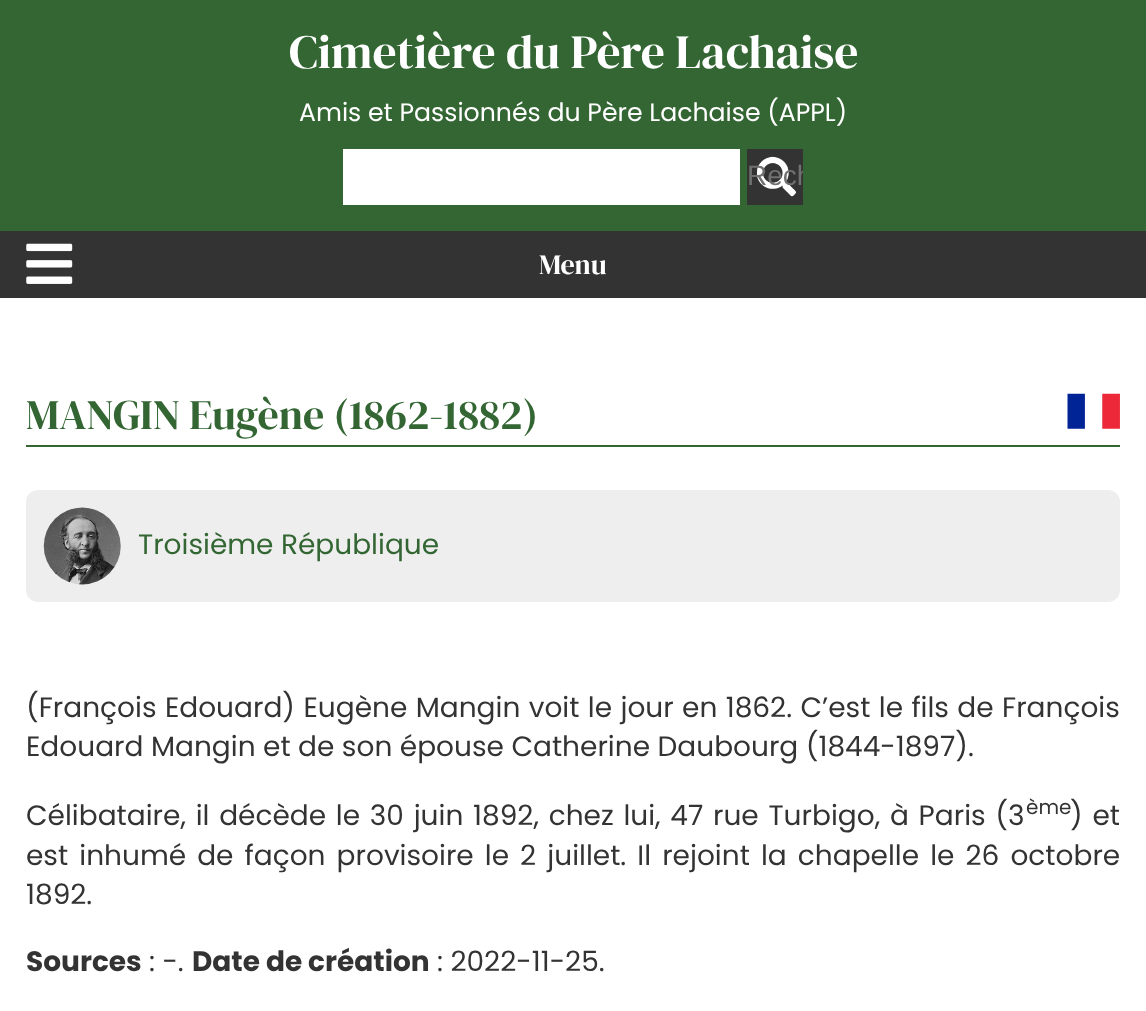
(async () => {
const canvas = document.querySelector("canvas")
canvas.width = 1146
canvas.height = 1011
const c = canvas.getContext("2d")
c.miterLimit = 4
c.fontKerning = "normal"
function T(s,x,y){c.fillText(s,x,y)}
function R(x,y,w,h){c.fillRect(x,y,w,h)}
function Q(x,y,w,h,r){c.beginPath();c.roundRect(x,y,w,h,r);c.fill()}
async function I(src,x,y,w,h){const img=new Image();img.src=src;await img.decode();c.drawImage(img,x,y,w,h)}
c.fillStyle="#fff"
R(0,0,1146,1011)
c.fillStyle="#363"
R(0,0,1146,231)
c.font="47.6px DM Serif Display"
c.fillStyle="#fff"
T("Cimetière du Père Lachaise",289,68)
c.font="25.2px Poppins"
T("Amis et Passionnés du Père Lachaise (APPL)",299,121)
R(343,149,397,56)
c.fillStyle="#333"
R(747,149,56,56)
await I("1.png",757,156,39,41)
c.save()
c.beginPath()
c.rect(747,149,56,56)
c.clip()
c.font="28px Liberation Sans"
c.fillStyle="#707070"
T("Rech",747,185)
c.restore()
R(0,231,1146,67)
await I("2.png",26,243,47,41)
c.font="28px DM Serif Display"
c.fillStyle="#fff"
T("Menu",539,274)
c.fillStyle="#363"
R(26,445,1094,2)
c.font="42px DM Serif Display"
T("MANGIN Eugène (1862-1882)",26,429)
await I("3.png",1067,393,53,36)
c.fillStyle="#eee"
Q(26,490,1094,112,12)
await I("4.png",43,507,78,78)
c.font="28px Poppins"
c.fillStyle="#363"
T("Troisième République",138,554)
c.wordSpacing="0.9px"
c.fillStyle="#333"
T("(François Edouard) Eugène Mangin voit le jour en 1862. C’est le fils de François",26,717)
c.wordSpacing="0px"
T("Edouard Mangin et de son épouse Catherine Daubourg (1844-1897).",26,756)
c.wordSpacing="2.25px"
T("Célibataire, il décède le 30 juin 1892, chez lui, 47 rue Turbigo, à Paris (3",26,825)
c.wordSpacing="0px"
c.font="20px Poppins"
T("ème",1026,814)
c.wordSpacing="2.25px"
c.font="28px Poppins"
T(") et",1070,825)
c.wordSpacing="3.6px"
T("est inhumé de façon provisoire le 2 juillet. Il rejoint la chapelle le 26 octobre",26,865)
c.wordSpacing="0px"
T("1892.",26,904)
c.font="bold 28px Poppins"
T("Sources",26,971)
c.font="28px Poppins"
T(": -.",149,971)
c.font="bold 28px Poppins"
T("Date de création",192,971)
c.font="28px Poppins"
T(": 2022-11-25.",437,971)
})()
